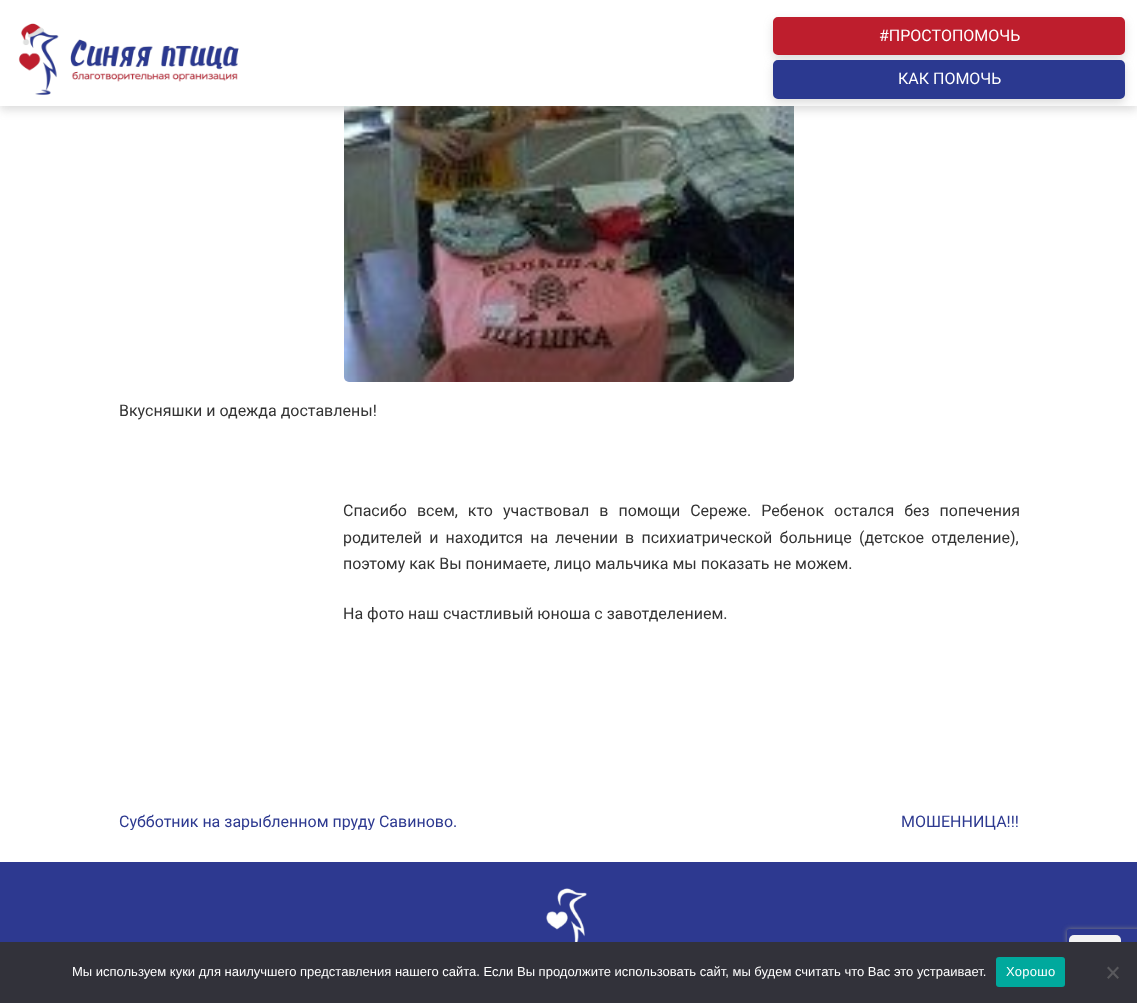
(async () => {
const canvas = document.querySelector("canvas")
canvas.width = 1137
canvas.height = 1003
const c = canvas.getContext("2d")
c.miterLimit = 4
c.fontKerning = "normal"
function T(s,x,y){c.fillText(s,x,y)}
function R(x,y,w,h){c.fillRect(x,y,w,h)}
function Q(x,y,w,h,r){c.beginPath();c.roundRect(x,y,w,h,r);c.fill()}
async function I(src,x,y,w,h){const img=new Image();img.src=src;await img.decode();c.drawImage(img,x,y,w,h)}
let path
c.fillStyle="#fff"
R(0,0,1137,1003)
await I("2.png",344,106,450,276)
c.fillStyle="#75757540"
c.filter="blur(5px)"
c.beginPath()
c.rect(0,4,1137,106)
c.fill()
c.filter="none"
c.fillStyle="#fff"
R(0,0,1137,106)
await I("1.png",18,23,221,72)
c.fillStyle="#75757540"
c.filter="blur(5px)"
c.beginPath()
c.roundRect(773,21,352,38,5)
c.fill()
c.filter="none"
c.fillStyle="#be1e2d"
c.beginPath()
c.roundRect(774,18,350,36,4)
c.fill()
c.strokeStyle="#be1e2d"
c.lineWidth=2
c.stroke()
c.font="16px Roboto"
c.fillStyle="#fff"
T("#ПРОСТОПОМОЧЬ",879,41)
c.save()
c.beginPath()
c.rect(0,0,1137,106)
c.clip()
c.fillStyle="#75757540"
c.filter="blur(5px)"
c.beginPath()
c.roundRect(773,64,352,39,5)
c.fill()
c.filter="none"
c.restore()
c.fillStyle="#2b3990"
c.beginPath()
c.roundRect(774,61,350,37,4)
c.fill()
c.strokeStyle="#2b3990"
c.stroke()
c.fillStyle="#fff"
T("КАК ПОМОЧЬ",898,84)
c.fillStyle="#333"
T("Вкусняшки и одежда доставлены!",119,416)
c.wordSpacing="6px"
T("Спасибо всем, кто участвовал в помощи Сереже. Ребенок остался без попечения",343,516)
c.wordSpacing="3.25px"
T("родителей и находится на лечении в психиатрической больнице (детское отделение),",343,543)
c.wordSpacing="0px"
T("поэтому как Вы понимаете, лицо мальчика мы показать не можем.",343,569)
T("На фото наш счастливый юноша с завотделением.",343,619)
c.save()
c.beginPath()
c.rect(119,814,900,16)
c.clip()
c.fillStyle="#2d3990"
T("Субботник на зарыбленном пруду Савиново.",119,827)
c.restore()
c.fillStyle="#2d3990"
T("МОШЕННИЦА!!!",901,827)
R(0,862,1137,80)
await I("3.png",546,888,41,54)
c.save()
path = new Path2D("M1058 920h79v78h-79zm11 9h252c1 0 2 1 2 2v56c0 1-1 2-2 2h-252c-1 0-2-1-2-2v-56c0-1 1-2 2-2z")
c.clip(path,"evenodd")
c.fillStyle="#808080"
c.filter="blur(2.5px)"
c.beginPath()
c.roundRect(1067,929,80,60,2)
c.fill()
c.filter="none"
c.restore()
c.fillStyle="#f3f3f3"
Q(1069,935,52,52,5)
c.fillStyle="#32323a"
R(0,942,1137,61)
c.font="13px Liberation Sans"
c.fillStyle="#fff"
T("Мы используем куки для наилучшего представления нашего сайта. Если Вы продолжите использовать сайт, мы будем считать что Вас это устраивает.",72,976)
c.fillStyle="#00a99d"
Q(996,957,69,30,3)
c.letterSpacing="0.25px"
c.fillStyle="#fff"
T("Хорошо",1006,976)
c.fillStyle="#59595d"
path = new Path2D("M1117.5 966.5l1.5 1.5l-10.5 11l-1.5-1.5z")
c.fill(path)
path = new Path2D("M1107 968l1.5-1.5l10.5 11l-1.5 1.5z")
c.fill(path)
})()
